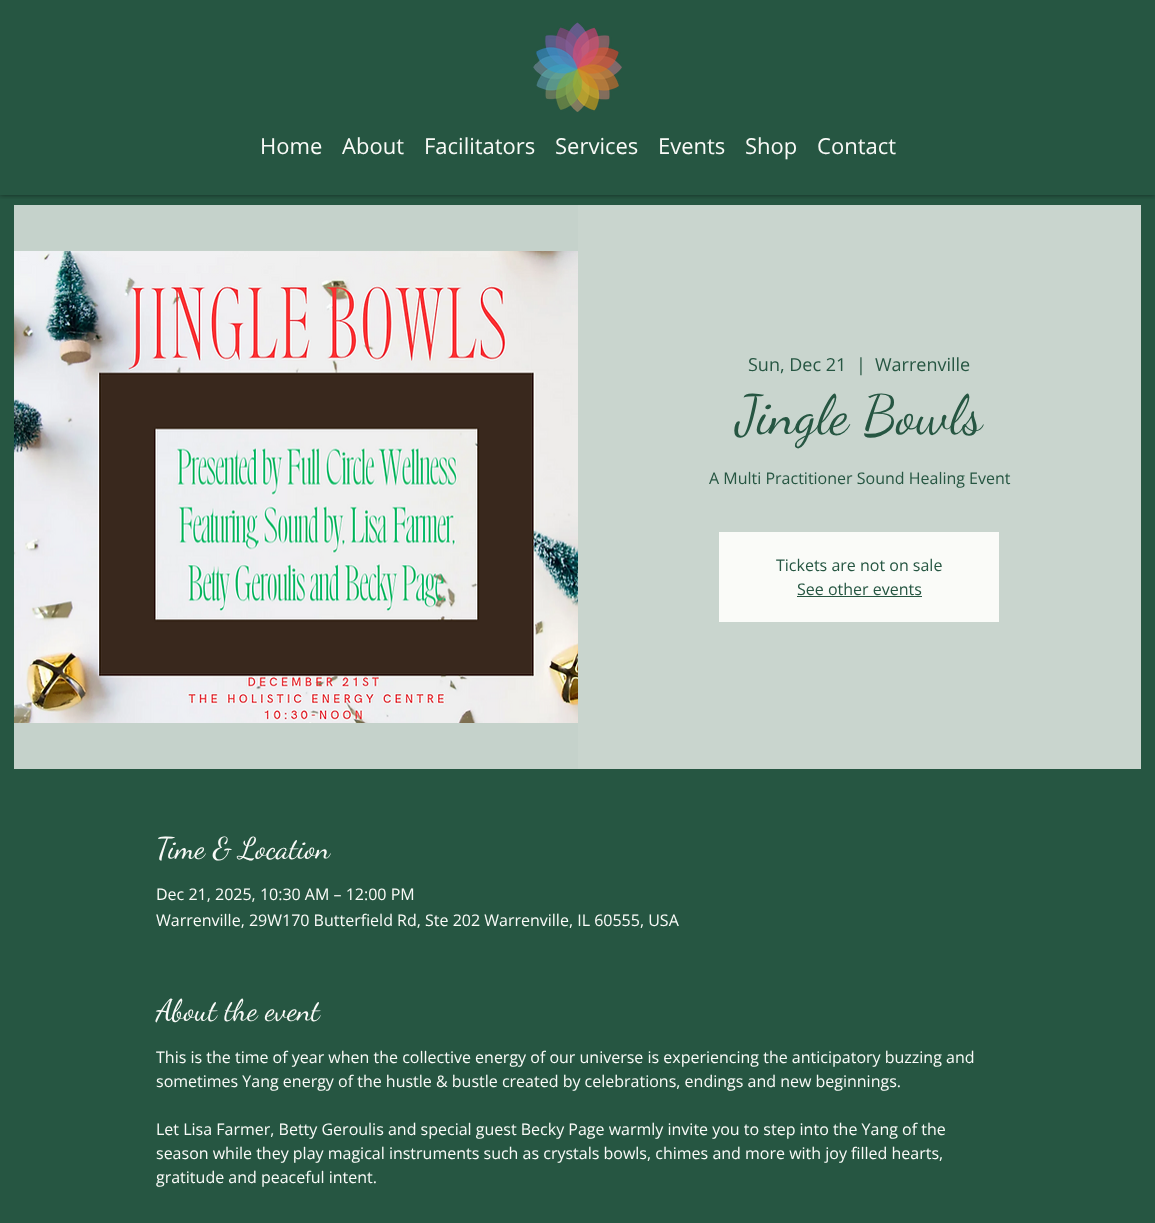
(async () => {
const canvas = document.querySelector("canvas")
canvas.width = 1155
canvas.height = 1223
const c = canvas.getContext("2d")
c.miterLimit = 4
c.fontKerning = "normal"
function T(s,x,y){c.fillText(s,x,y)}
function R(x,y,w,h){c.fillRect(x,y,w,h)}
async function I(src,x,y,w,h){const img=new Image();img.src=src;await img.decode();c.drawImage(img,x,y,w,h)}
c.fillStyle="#265642"
R(0,0,1155,1223)
c.save()
c.beginPath()
c.rect(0,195,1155,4)
c.clip()
c.fillStyle="#00000080"
c.filter="blur(2.5px)"
c.beginPath()
c.rect(0,0,1155,195)
c.fill()
c.filter="none"
c.restore()
await I("1.png",533,22,89,90)
c.font="22px 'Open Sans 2'"
c.fillStyle="#fafbf8"
T("Home",260,154)
T("About",342,154)
T("Facilitators",424,154)
T("Services",555,154)
T("Events",658,154)
T("Shop",745,154)
T("Contact",817,154)
c.fillStyle="#c5d2cb"
R(14,205,564,564)
await I("2.png",14,251,564,472)
c.fillStyle="#c9d5ce"
R(578,205,563,564)
c.font="18px Open Sans"
c.fillStyle="#265642"
T("Sun, Dec 21",748,371)
T("|",856,371)
T("Warrenville",875,371)
c.font="55px Dancing Script"
T("Jingle Bowls",736,433)
c.font="16px Open Sans"
T("A Multi Practitioner Sound Healing Event",709,484)
c.fillStyle="#fafbf8"
R(719,532,280,90)
c.fillStyle="#265642"
T("Tickets are not on sale",776,571)
T("See other events",797,595)
R(797,596,125,1)
c.font="30px Dancing Script"
c.fillStyle="#fafbf8"
T("Time & Location",156,858)
c.font="16px Open Sans"
T("Dec 21, 2025, 10:30 AM – 12:00 PM",156,900)
T("Warrenville, 29W170 Butterfield Rd, Ste 202 Warrenville, IL 60555, USA",156,926)
c.font="30px Dancing Script"
T("About the event",156,1020)
c.font="16px Open Sans"
T("This is the time of year when the collective energy of our universe is experiencing the anticipatory buzzing and",156,1063)
T("sometimes Yang energy of the hustle & bustle created by celebrations, endings and new beginnings.",156,1087)
T("Let Lisa Farmer, Betty Geroulis and special guest Becky Page warmly invite you to step into the Yang of the",156,1135)
T("season while they play magical instruments such as crystals bowls, chimes and more with joy filled hearts,",156,1159)
T("gratitude and peaceful intent.",156,1183)
})()
